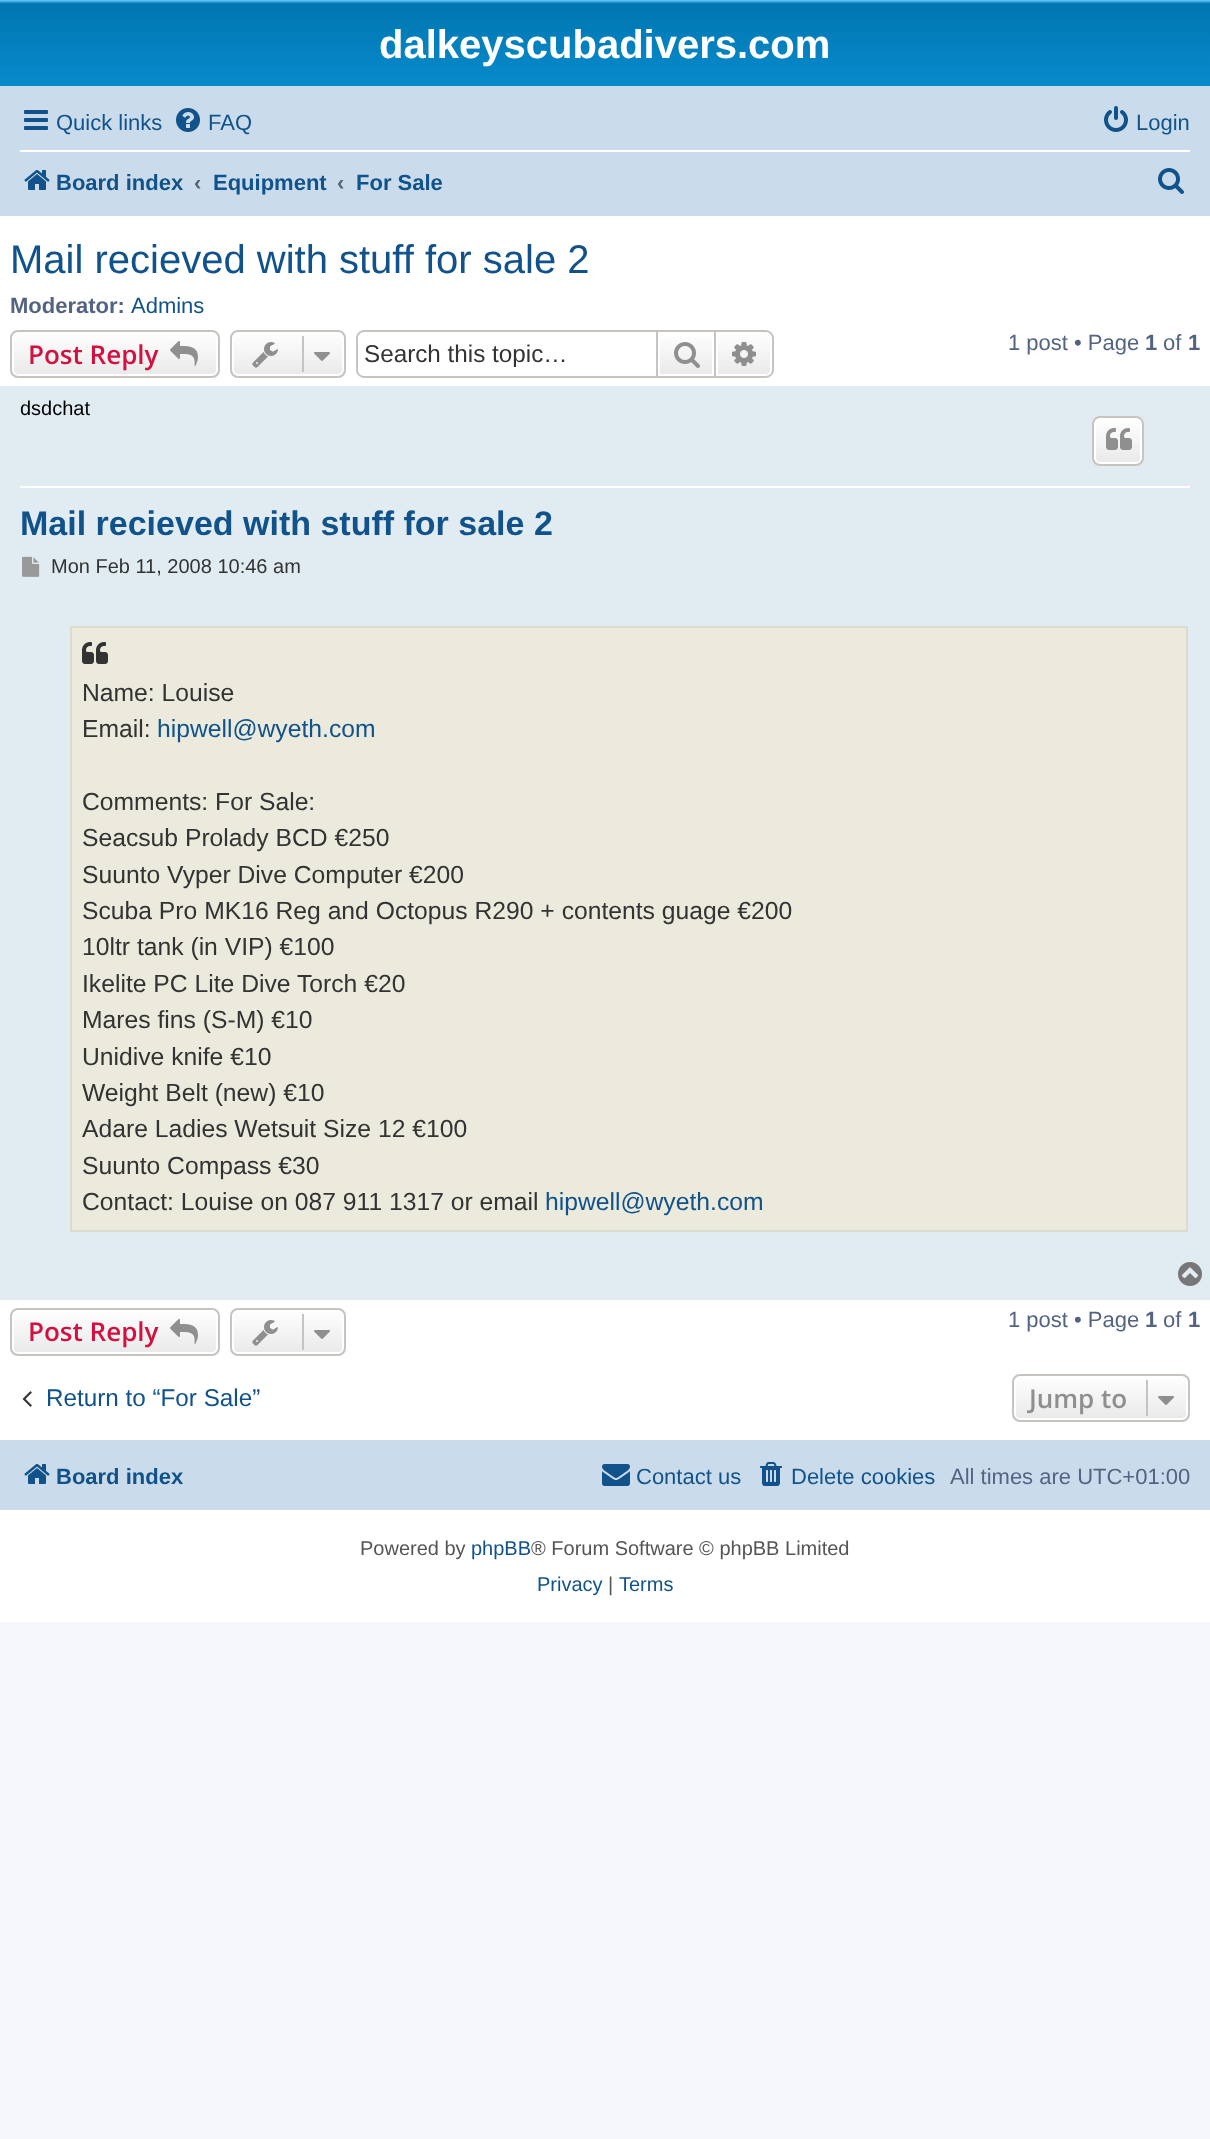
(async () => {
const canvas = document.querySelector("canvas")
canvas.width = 1210
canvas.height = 2139
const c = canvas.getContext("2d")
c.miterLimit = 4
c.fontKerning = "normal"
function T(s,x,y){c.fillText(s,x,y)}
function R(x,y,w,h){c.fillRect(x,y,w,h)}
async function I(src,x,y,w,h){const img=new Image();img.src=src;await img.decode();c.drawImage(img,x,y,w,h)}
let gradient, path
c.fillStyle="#f5f7fa"
R(0,0,1210,2139)
c.fillStyle="#fff"
R(0,216,1210,1406)
gradient = c.createLinearGradient(605,0,605,184)
gradient.addColorStop(0,"#6aceff")
gradient.addColorStop(.02,"#0076b1")
gradient.addColorStop(1,"#12a3eb")
c.fillStyle = gradient
R(0,0,1210,86)
c.font="bold 40px Liberation Sans"
c.fillStyle="#fff"
T("dalkeyscubadivers.com",379,58)
c.fillStyle="#cadceb"
R(0,86,1210,130)
await I("1.png",24,110,24,20)
c.font="22px Liberation Sans"
c.fillStyle="#105289"
T("Quick links",56,130)
await I("2.png",176,108,24,24)
T("FAQ",208,130)
await I("3.png",1104,106,24,26)
T("Login",1136,130)
c.fillStyle="#fff"
R(20,150,1170,2)
await I("4.png",24,170,26,20)
c.font="bold 22px Liberation Sans"
c.fillStyle="#105289"
T("Board index",56,190)
c.fillStyle="#536482"
T("‹",194,190)
c.fillStyle="#105289"
T("Equipment",213,190)
c.fillStyle="#536482"
T("‹",337,190)
c.fillStyle="#105289"
T("For Sale",356,190)
await I("5.png",1158,168,26,26)
c.font="40px Liberation Sans"
T("Mail recieved with stuff for sale 2",10,273)
c.font="bold 22px Liberation Sans"
c.fillStyle="#536482"
T("Moderator:",10,313)
c.font="22px Liberation Sans"
c.fillStyle="#105289"
T("Admins",131,313)
c.save()
c.beginPath()
c.roundRect(10,330,210,48,8)
c.clip()
gradient = c.createLinearGradient(115,332,115,376)
gradient.addColorStop(0,"#fff")
gradient.addColorStop(1,"#e9e9e9")
c.fillStyle = gradient
R(10,332,210,44)
c.restore()
c.beginPath()
c.roundRect(13,333,204,42,5)
c.strokeStyle="#fff"
c.lineWidth=2
c.stroke()
c.beginPath()
c.roundRect(11,331,208,46,7)
c.strokeStyle="#c7c3bf"
c.stroke()
c.font="600 26px Open Sans"
c.fillStyle="#d31141"
T("Post Reply",28,364)
await I("6.png",170,341,28,25)
c.save()
c.beginPath()
c.roundRect(230,330,116,48,8)
c.clip()
gradient = c.createLinearGradient(288,332,288,376)
gradient.addColorStop(0,"#fff")
gradient.addColorStop(1,"#e9e9e9")
c.fillStyle = gradient
R(230,332,116,44)
c.restore()
c.beginPath()
c.roundRect(233,333,110,42,5)
c.strokeStyle="#fff"
c.stroke()
c.beginPath()
c.roundRect(231,331,114,46,7)
c.strokeStyle="#c7c3bf"
c.stroke()
await I("7.png",252,342,26,26)
c.fillStyle="#c7c3bf"
R(302,336,2,36)
await I("8.png",314,352,16,9)
path = new Path2D("M364 330h292v48h-292c-4 0-8-4-8-8v-32c0-4 4-8 8-8zm0 2h292v44h-292c-3 0-6-3-6-6v-32c0-3 3-6 6-6z")
c.fill(path,"evenodd")
c.font="24.25px Liberation Sans"
c.fillStyle="#333"
T("Search this topic…",364,362)
gradient = c.createLinearGradient(686,332,686,376)
gradient.addColorStop(0,"#fff")
gradient.addColorStop(1,"#e9e9e9")
c.fillStyle = gradient
R(660,337,52,37)
c.strokeRect(657,331,58,46)
await I("9.png",674,342,26,26)
gradient = c.createLinearGradient(744,332,744,376)
gradient.addColorStop(0,"#fff")
gradient.addColorStop(1,"#e9e9e9")
c.fillStyle = gradient
c.beginPath()
c.roundRect(717,333,54,42,[0,5,5,0])
c.fill()
c.strokeStyle="#fff"
c.stroke()
c.fillStyle="#c7c3bf"
path = new Path2D("M716 330h50c4 0 8 4 8 8v32c0 4-4 8-8 8h-50zm0 2h50c3 0 6 3 6 6v32c0 3-3 6-6 6h-50z")
c.fill(path,"evenodd")
await I("10.png",732,342,24,24)
c.font="22px Liberation Sans"
c.fillStyle="#536482"
T("1 post • Page",1008,350)
c.font="bold 22px Liberation Sans"
T("1",1145,350)
c.font="22px Liberation Sans"
T("of",1163,350)
c.font="bold 22px Liberation Sans"
T("1",1188,350)
c.fillStyle="#e1ebf2"
R(0,386,1210,914)
c.fillStyle="#fff"
R(20,486,1170,2)
c.font="20px Liberation Sans"
c.fillStyle="#000"
T("dsdchat",20,415)
c.save()
c.beginPath()
c.roundRect(1092,416,52,50,8)
c.clip()
gradient = c.createLinearGradient(1118,418,1118,464)
gradient.addColorStop(0,"#fff")
gradient.addColorStop(1,"#e9e9e9")
c.fillStyle = gradient
R(1092,418,52,46)
c.restore()
c.beginPath()
c.roundRect(1095,419,46,44,5)
c.stroke()
c.beginPath()
c.roundRect(1093,417,50,48,7)
c.strokeStyle="#c7c3bf"
c.stroke()
await I("11.png",1106,428,26,22)
c.font="bold 34px Liberation Sans"
c.fillStyle="#105289"
T("Mail recieved with stuff for sale 2",20,535)
await I("12.png",22,556,18,21)
c.font="20px Liberation Sans"
c.fillStyle="#333"
T("Mon Feb 11, 2008 10:46 am",51,573)
c.fillStyle="#ebeadd"
c.beginPath()
c.rect(71,627,1116,604)
c.fill()
c.strokeStyle="#dbdbce"
c.stroke()
await I("13.png",82,642,26,22)
c.font="24.7px Liberation Sans"
c.fillStyle="#333"
T("Name: Louise",82,701)
T("Email:",82,737)
c.fillStyle="#105289"
T("hipwell@wyeth.com",157,737)
c.fillStyle="#333"
T("Comments: For Sale:",82,810)
T("Seacsub Prolady BCD €250",82,846)
T("Suunto Vyper Dive Computer €200",82,883)
T("Scuba Pro MK16 Reg and Octopus R290 + contents guage €200",82,919)
T("10ltr tank (in VIP) €100",82,955)
T("Ikelite PC Lite Dive Torch €20",82,992)
T("Mares fins (S-M) €10",82,1028)
T("Unidive knife €10",82,1065)
T("Weight Belt (new) €10",82,1101)
T("Adare Ladies Wetsuit Size 12 €100",82,1137)
T("Suunto Compass €30",82,1174)
T("Contact: Louise on 087 911 1317 or email",82,1210)
c.fillStyle="#105289"
T("hipwell@wyeth.com",545,1210)
await I("14.png",1178,1262,24,24)
c.save()
c.beginPath()
c.roundRect(10,1308,210,48,8)
c.clip()
gradient = c.createLinearGradient(115,1310,115,1354)
gradient.addColorStop(0,"#fff")
gradient.addColorStop(1,"#e9e9e9")
c.fillStyle = gradient
R(10,1310,210,44)
c.restore()
c.beginPath()
c.roundRect(13,1311,204,42,5)
c.strokeStyle="#fff"
c.stroke()
c.beginPath()
c.roundRect(11,1309,208,46,7)
c.strokeStyle="#c7c3bf"
c.stroke()
c.font="600 26px Open Sans"
c.fillStyle="#d31141"
T("Post Reply",28,1341)
await I("6.png",170,1319,28,25)
c.save()
c.beginPath()
c.roundRect(230,1308,116,48,8)
c.clip()
gradient = c.createLinearGradient(288,1310,288,1354)
gradient.addColorStop(0,"#fff")
gradient.addColorStop(1,"#e9e9e9")
c.fillStyle = gradient
R(230,1310,116,44)
c.restore()
c.beginPath()
c.roundRect(233,1311,110,42,5)
c.strokeStyle="#fff"
c.stroke()
c.beginPath()
c.roundRect(231,1309,114,46,7)
c.strokeStyle="#c7c3bf"
c.stroke()
await I("7.png",252,1320,26,26)
c.fillStyle="#c7c3bf"
R(302,1314,2,36)
await I("8.png",314,1330,16,9)
c.font="22px Liberation Sans"
c.fillStyle="#536482"
T("1 post • Page",1008,1327)
c.font="bold 22px Liberation Sans"
T("1",1145,1327)
c.font="22px Liberation Sans"
T("of",1163,1327)
c.font="bold 22px Liberation Sans"
T("1",1188,1327)
await I("15.png",22,1391,10,16)
c.font="24.25px Liberation Sans"
c.fillStyle="#105289"
T("Return to “For Sale”",46,1406)
c.save()
c.beginPath()
c.roundRect(1012,1374,178,48,8)
c.clip()
gradient = c.createLinearGradient(1101,1376,1101,1420)
gradient.addColorStop(0,"#fff")
gradient.addColorStop(1,"#e9e9e9")
c.fillStyle = gradient
R(1012,1376,178,44)
c.restore()
c.beginPath()
c.roundRect(1015,1377,172,42,5)
c.strokeStyle="#fff"
c.stroke()
c.beginPath()
c.roundRect(1013,1375,176,46,7)
c.strokeStyle="#c7c3bf"
c.stroke()
c.font="600 26px Open Sans"
c.fillStyle="#8f8f8f"
T("Jump to",1029,1408)
c.fillStyle="#c7c3bf"
R(1146,1380,2,36)
await I("8.png",1158,1396,16,9)
c.fillStyle="#cadceb"
R(0,1440,1210,70)
await I("4.png",24,1464,26,20)
c.font="bold 22px Liberation Sans"
c.fillStyle="#105289"
T("Board index",56,1484)
await I("16.png",602,1464,28,22)
c.font="22px Liberation Sans"
T("Contact us",636,1484)
await I("17.png",760,1462,22,24)
T("Delete cookies",791,1484)
c.fillStyle="#536482"
T("All times are UTC+01:00",950,1484)
c.font="20px Liberation Sans"
c.fillStyle="#555"
T("Powered by",360,1555)
c.fillStyle="#105289"
T("phpBB",471,1555)
c.fillStyle="#555"
T("® Forum Software © phpBB Limited",531,1555)
c.fillStyle="#105289"
T("Privacy",537,1591)
c.fillStyle="#555"
T("|",608,1591)
c.fillStyle="#105289"
T("Terms",619,1591)
})()
